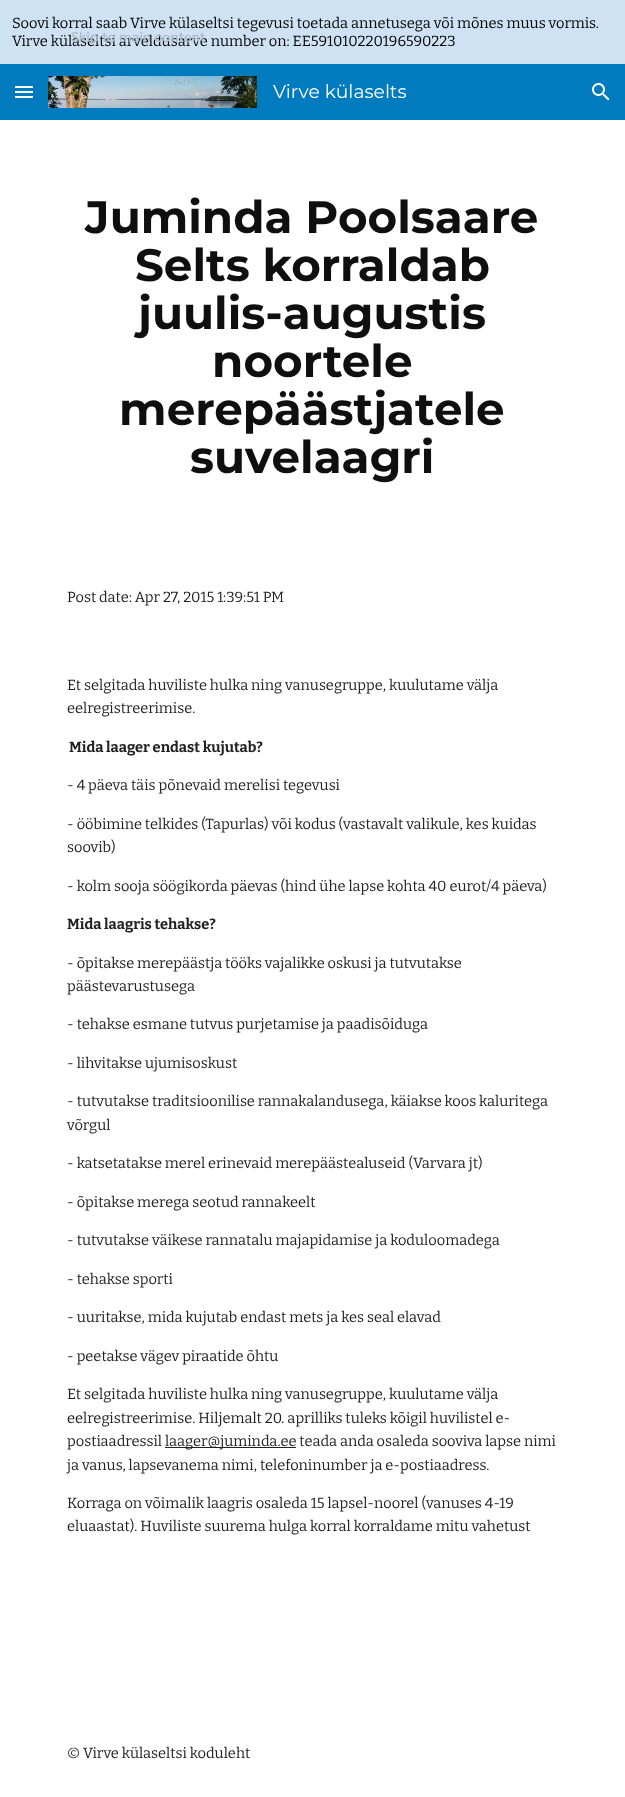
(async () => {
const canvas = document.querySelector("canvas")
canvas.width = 625
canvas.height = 1797
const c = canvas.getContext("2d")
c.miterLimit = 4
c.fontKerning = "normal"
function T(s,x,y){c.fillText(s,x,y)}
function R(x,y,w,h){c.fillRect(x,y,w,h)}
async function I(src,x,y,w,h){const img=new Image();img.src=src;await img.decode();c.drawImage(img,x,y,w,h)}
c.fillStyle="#fff"
R(0,0,625,1797)
c.fillStyle="#cfe2f3"
R(0,0,625,64)
c.font="14.65px Bitter"
c.fillStyle="#000"
T("Soovi korral saab Virve külaseltsi tegevusi toetada annetusega või mõnes muus vormis.",12,28)
T("Virve külaseltsi arveldusarve number on: EE591010220196590223",12,46)
c.fillStyle="#007bbf"
R(0,64,625,56)
c.fillStyle="#fff"
R(15,86,18,2)
R(15,91,18,2)
R(15,96,18,2)
await I("1.png",48,76,209,32)
c.font="18.75px Montserrat"
T("Virve külaselts",273,98)
await I("2.png",592,83,18,18)
c.font="bold 45.25px Montserrat"
c.fillStyle="#0f0f0f"
T("Juminda Poolsaare",85,233)
T("Selts korraldab",135,281)
T("juulis-augustis",138,329)
T("noortele",212,377)
T("merepäästjatele",119,425)
T("suvelaagri",190,473)
c.font="14.65px Bitter"
c.fillStyle="#212121"
T("Post date: Apr 27, 2015 1:39:51 PM",67,602)
T("Et selgitada huviliste hulka ning vanusegruppe, kuulutame välja",67,690)
T("eelregistreerimise.",67,713)
c.font="bold 14.65px Bitter"
T("Mida laager endast kujutab?",69,752)
c.font="14.65px Bitter"
T("- 4 päeva täis põnevaid merelisi tegevusi",67,790)
T("- ööbimine telkides (Tapurlas) või kodus (vastavalt valikule, kes kuidas",67,829)
T("soovib)",67,852)
T("- kolm sooja söögikorda päevas (hind ühe lapse kohta 40 eurot/4 päeva)",67,891)
c.font="bold 14.65px Bitter"
T("Mida laagris tehakse?",67,929)
c.font="14.65px Bitter"
T("- õpitakse merepäästja tööks vajalikke oskusi ja tutvutakse",67,968)
T("päästevarustusega",67,991)
T("- tehakse esmane tutvus purjetamise ja paadisõiduga",67,1029)
T("- lihvitakse ujumisoskust",67,1068)
T("- tutvutakse traditsioonilise rannakalandusega, käiakse koos kaluritega",67,1106)
T("võrgul",67,1130)
T("- katsetatakse merel erinevaid merepäästealuseid (Varvara jt)",67,1168)
T("- õpitakse merega seotud rannakeelt",67,1207)
T("- tutvutakse väikese rannatalu majapidamise ja koduloomadega",67,1245)
T("- tehakse sporti",67,1284)
T("- uuritakse, mida kujutab endast mets ja kes seal elavad",67,1322)
T("- peetakse vägev piraatide õhtu",67,1361)
T("Et selgitada huviliste hulka ning vanusegruppe, kuulutame välja",67,1399)
T("eelregistreerimise. Hiljemalt 20. aprilliks tuleks kõigil huvilistel e-",67,1423)
T("postiaadressil",67,1446)
R(165,1447,131,1)
T("laager@juminda.ee teada anda osaleda sooviva lapse nimi",165,1446)
T("ja vanus, lapsevanema nimi, telefoninumber ja e-postiaadress.",67,1470)
T("Korraga on võimalik laagris osaleda 15 lapsel-noorel (vanuses 4-19",67,1508)
T("eluaastat). Huviliste suurema hulga korral korraldame mitu vahetust",67,1531)
T("© Virve külaseltsi koduleht",67,1758)
c.letterSpacing="0.1px"
c.font="500 14px Google Sans"
c.fillStyle="#aebecc"
T("Skip to main content",71,42)
})()
